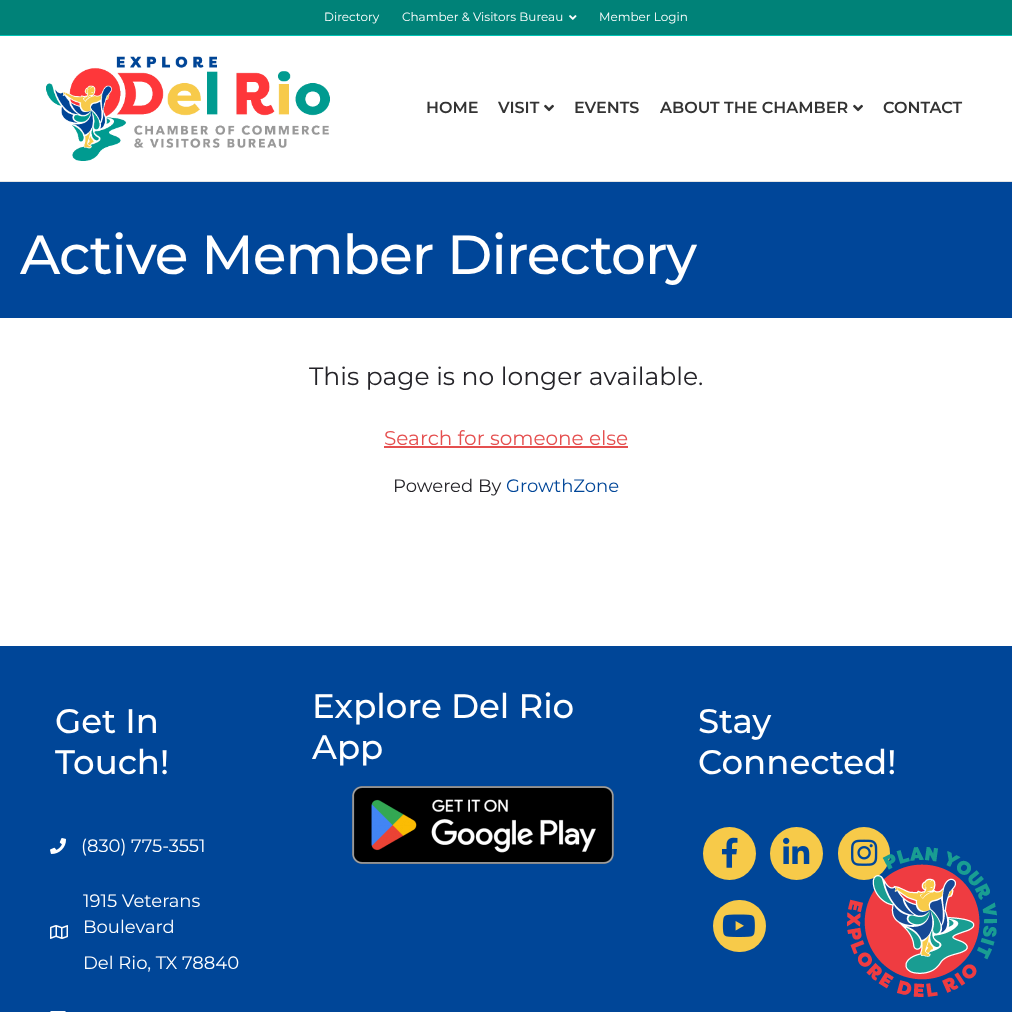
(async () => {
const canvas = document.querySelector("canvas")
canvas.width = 1012
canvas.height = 1012
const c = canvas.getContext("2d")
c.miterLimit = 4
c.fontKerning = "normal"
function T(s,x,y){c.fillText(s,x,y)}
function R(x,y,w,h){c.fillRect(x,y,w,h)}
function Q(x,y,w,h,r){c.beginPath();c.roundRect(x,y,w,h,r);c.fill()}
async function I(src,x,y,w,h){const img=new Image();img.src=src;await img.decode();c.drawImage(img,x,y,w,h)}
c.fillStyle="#fff"
R(0,0,1012,1012)
c.fillStyle="#008278"
R(0,0,1012,35)
c.fillStyle="#00c4b5"
R(0,35,1012,1)
c.font="12px Montserrat"
c.fillStyle="#fff"
T("Directory",324,21)
T("Chamber & Visitors Bureau",402,21)
await I("1.png",569,15,8,5)
T("Member Login",599,21)
c.fillStyle="#e4e4e4"
R(0,181,1012,1)
await I("2.png",46,56,284,105)
c.font="600 16px Montserrat"
c.fillStyle="#333"
T("HOME",426,113)
T("VISIT",498,113)
await I("3.png",544,104,10,8)
T("EVENTS",574,113)
T("ABOUT THE CHAMBER",660,113)
await I("3.png",853,104,10,8)
T("CONTACT",883,113)
c.fillStyle="#004699"
R(0,182,1012,136)
c.letterSpacing="-1px"
c.font="500 55px Montserrat"
c.fillStyle="#fff"
T("Active Member Directory",20,274)
c.letterSpacing="0px"
c.font="25px Montserrat"
c.fillStyle="#242328"
T("This page is no longer available.",309,385)
c.font="20px Montserrat"
c.fillStyle="#e54f4f"
T("Search for someone else",384,445)
R(384,446,244,2)
c.font="18px Montserrat"
c.fillStyle="#242328"
T("Powered By",393,492)
c.fillStyle="#004698"
T("GrowthZone",506,492)
R(0,646,1012,366)
c.font="500 34px Montserrat"
c.fillStyle="#fff"
T("Get In",55,733)
T("Touch!",55,774)
await I("4.png",50,838,16,16)
c.font="18px Montserrat"
T("(830) 775-3551",81,852)
await I("5.png",50,925,18,14)
T("1915 Veterans",83,907)
T("Boulevard",83,933)
T("Del Rio, TX 78840",83,969)
await I("6.png",50,1011,16,1)
c.font="500 34px Montserrat"
T("Explore Del Rio",312,718)
T("App",312,759)
await I("7.png",352,786,262,78)
T("Stay",698,733)
T("Connected!",698,774)
c.fillStyle="#f7ca49"
c.beginPath()
c.arc(729.5,853.5,26.5,0,7)
c.fill()
await I("8.png",722,837,16,31)
c.beginPath()
c.arc(796.5,853.5,26.5,0,7)
c.fill()
await I("9.png",783,837,27,27)
Q(838,827,52,53,26)
await I("10.png",851,839,27,27)
Q(713,900,53,52,26)
await I("11.png",722,914,33,23)
await I("12.png",847,847,150,150)
})()
